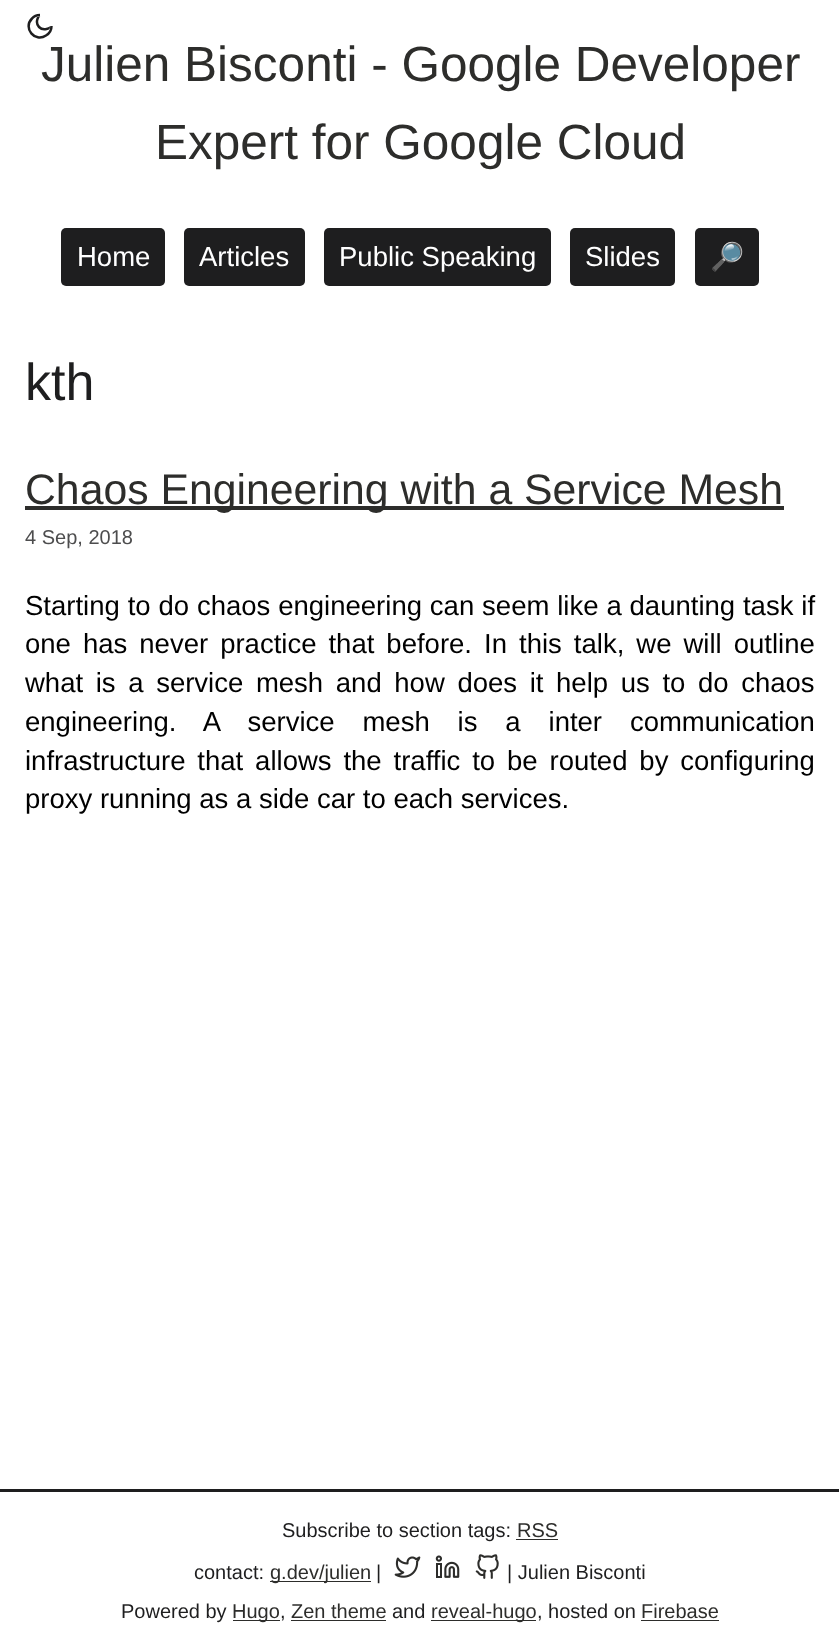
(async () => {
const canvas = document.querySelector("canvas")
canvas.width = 839
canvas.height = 1649
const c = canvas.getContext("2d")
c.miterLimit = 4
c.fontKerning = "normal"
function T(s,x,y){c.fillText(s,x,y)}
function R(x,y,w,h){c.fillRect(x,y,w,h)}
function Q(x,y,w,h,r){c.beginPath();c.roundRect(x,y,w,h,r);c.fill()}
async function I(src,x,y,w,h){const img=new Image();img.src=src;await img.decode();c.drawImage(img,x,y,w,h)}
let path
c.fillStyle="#fff"
R(0,0,839,1649)
path = new Path2D("M51.5 26c0 4-2 7.5-5.5 9.5c-11 7.5-23.5-7.5-14-17c2-2.5 5-3.5 8-3.5")
c.strokeStyle="#1e1e1f"
c.lineWidth=2.5
c.stroke(path)
c.save()
path = new Path2D("M33 33.5c-4-4-4-10.5 0-14.5c4-3.5 10-3.5 14 0c4 4 4 10.5 0 14.5c-4 3.5-10 3.5-14 0z")
c.clip(path)
path = new Path2D("M39 27c-8-8 9.5-25.5 18-17.5c8 8-9.5 26-18 17.5z")
c.stroke(path)
c.restore()
c.font="49.5px Liberation Sans"
c.fillStyle="#2d2d2b"
T("Julien Bisconti - Google Developer",41,81)
T("Expert for Google Cloud",155,159)
c.fillStyle="#1e1e1f"
Q(61,228,104,58,5)
c.font="27.5px Liberation Sans"
c.fillStyle="#fff"
T("Home",77,266)
c.fillStyle="#1e1e1f"
Q(184,228,121,58,5)
c.fillStyle="#fff"
T("Articles",199,266)
c.fillStyle="#1e1e1f"
Q(324,228,227,58,5)
c.fillStyle="#fff"
T("Public Speaking",339,266)
c.fillStyle="#1e1e1f"
Q(570,228,105,58,5)
c.fillStyle="#fff"
T("Slides",585,266)
c.fillStyle="#1e1e1f"
Q(695,228,64,58,5)
c.font="27.5px Noto Color Emoji"
c.fillStyle="#fff"
T("🔎",710,266)
c.font="52px Liberation Sans"
c.fillStyle="#1e1e1f"
T("kth",25,400)
c.fillStyle="#2d2d2b"
R(25,506,759,4)
c.font="42.75px Liberation Sans"
T("Chaos Engineering with a Service Mesh",25,504)
c.font="20px Liberation Sans"
c.fillStyle="#4d4d4e"
T("4 Sep, 2018",25,544)
c.wordSpacing="0.25px"
c.font="27.5px Liberation Sans"
c.fillStyle="#000"
T("Starting to do chaos engineering can seem like a daunting task if",25,615)
c.wordSpacing="4.4px"
T("one has never practice that before. In this talk, we will outline",25,653)
c.wordSpacing="5px"
T("what is a service mesh and how does it help us to do chaos",25,692)
c.wordSpacing="20.25px"
T("engineering. A service mesh is a inter communication",25,731)
c.wordSpacing="4.25px"
T("infrastructure that allows the traffic to be routed by configuring",25,770)
c.wordSpacing="0px"
T("proxy running as a side car to each services.",25,808)
c.fillStyle="#1e1e1f"
R(0,1489,839,3)
c.font="20px Liberation Sans"
T("Subscribe to section tags:",282,1537)
c.fillStyle="#2d2d2b"
T("RSS",517,1537)
R(516,1539,42,1)
c.fillStyle="#1e1e1f"
T("contact:",194,1579)
c.fillStyle="#2d2d2b"
R(270,1581,101,1)
T("g.dev/julien",270,1579)
c.fillStyle="#1e1e1f"
T("|",376,1579)
await I("1.png",394,1556,27,22)
await I("2.png",435,1555,25,23)
await I("3.png",475,1554,24,25)
T("| Julien Bisconti",507,1579)
T("Powered by",121,1618)
c.fillStyle="#2d2d2b"
R(233,1620,47,1)
T("Hugo",232,1618)
c.fillStyle="#1e1e1f"
T(",",280,1618)
c.fillStyle="#2d2d2b"
T("Zen theme",291,1618)
R(291,1620,95,1)
c.fillStyle="#1e1e1f"
T("and",392,1618)
c.fillStyle="#2d2d2b"
R(431,1620,105,1)
T("reveal-hugo",431,1618)
c.fillStyle="#1e1e1f"
T(", hosted on",537,1618)
c.fillStyle="#2d2d2b"
T("Firebase",641,1618)
R(641,1620,78,1)
})()
